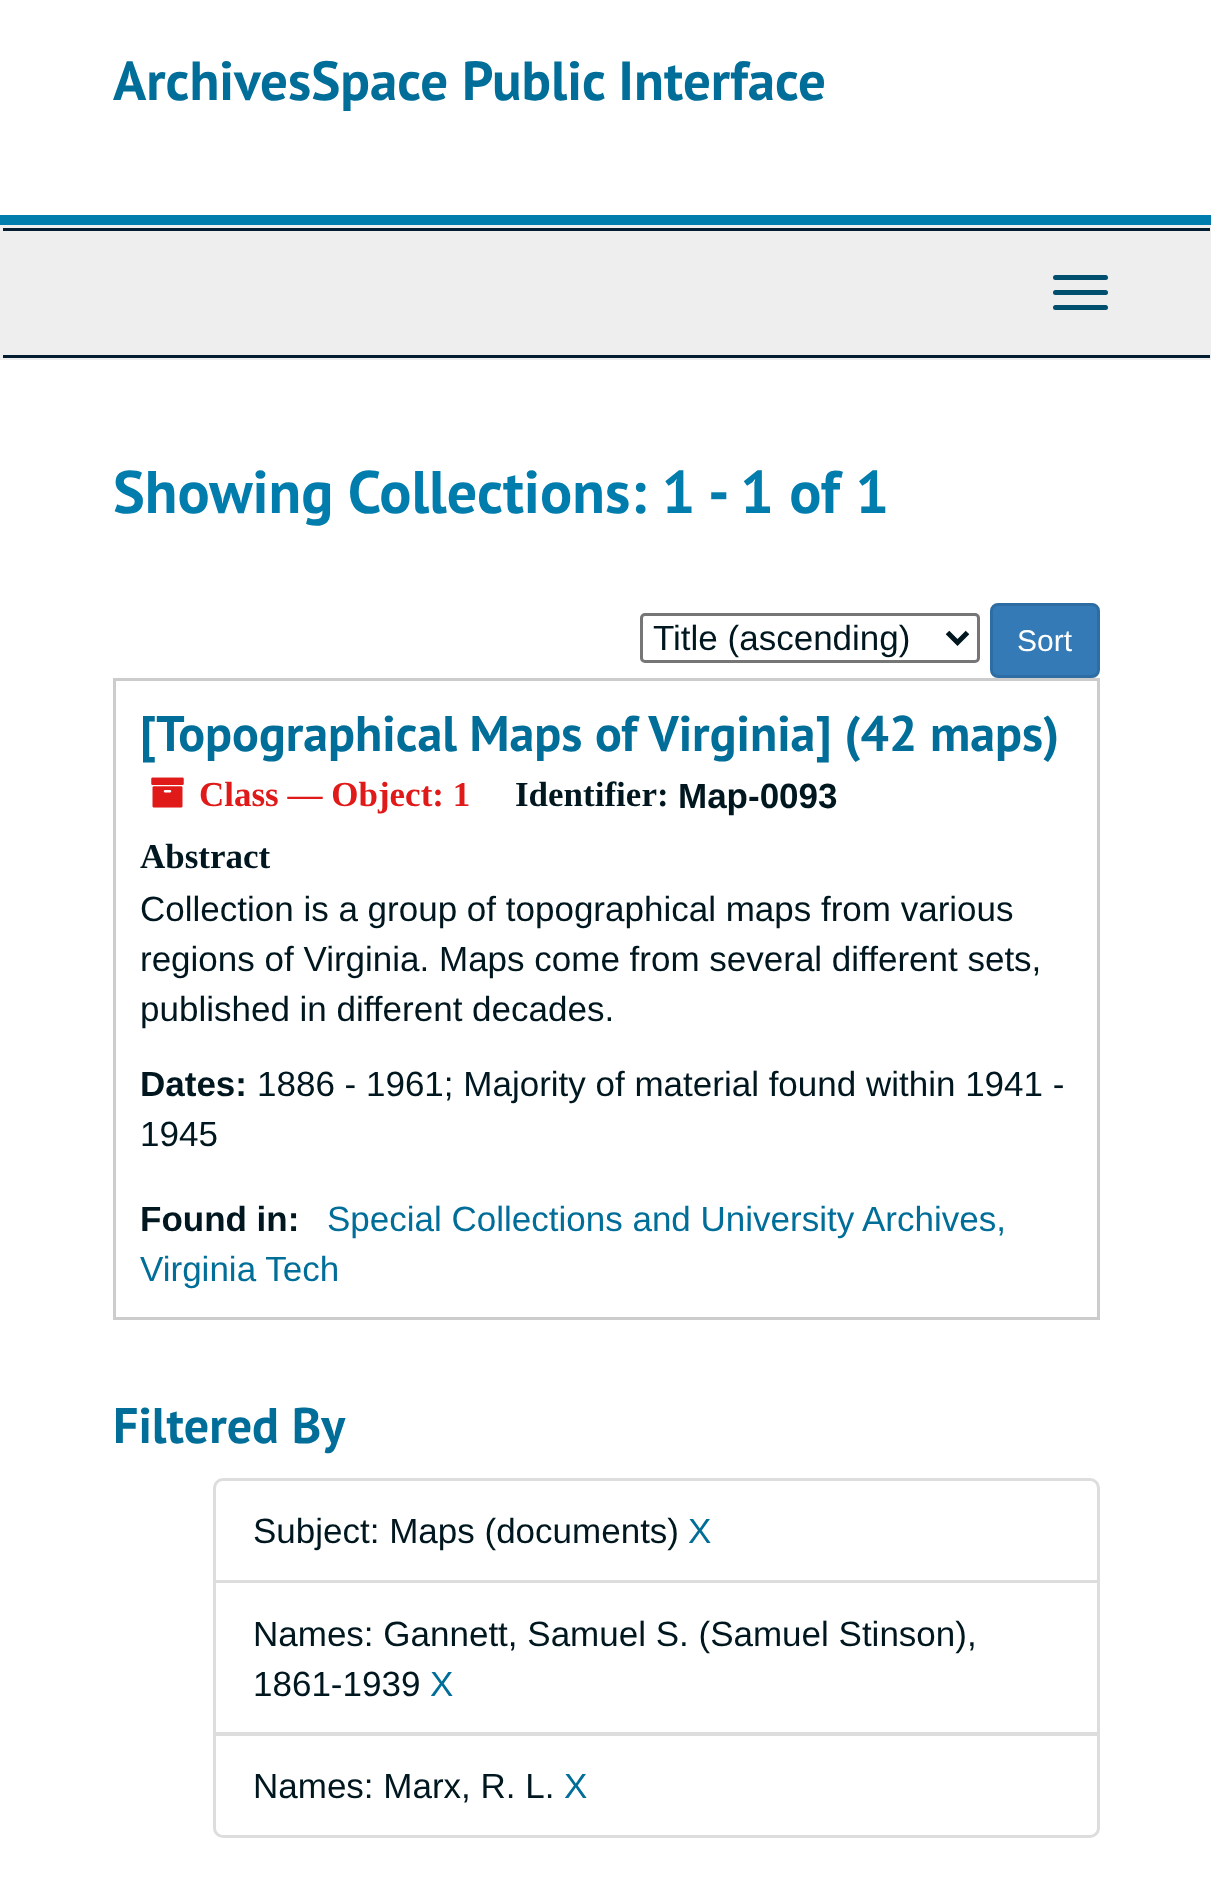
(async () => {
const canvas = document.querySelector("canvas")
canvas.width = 1211
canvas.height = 1899
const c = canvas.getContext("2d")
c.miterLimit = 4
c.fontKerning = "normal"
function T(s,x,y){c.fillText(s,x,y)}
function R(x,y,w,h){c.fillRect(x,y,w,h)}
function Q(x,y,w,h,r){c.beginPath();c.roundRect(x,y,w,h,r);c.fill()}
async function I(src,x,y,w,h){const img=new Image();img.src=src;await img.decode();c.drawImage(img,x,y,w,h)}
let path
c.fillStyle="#fff"
R(0,0,1211,1899)
c.fillStyle="#007cad"
R(0,215,1211,10)
c.font="bold 55px PT Sans"
c.fillStyle="#006e99"
T("ArchivesSpace Public Interface",113,100)
c.fillStyle="#eee"
R(0,225,1211,135)
c.fillStyle="#041c2f"
R(3,228,1207,3)
R(3,355,1207,3)
c.fillStyle="#004f6f"
Q(1053,275,55,5,2.5)
Q(1053,290,55,5,2.5)
Q(1053,305,55,5,2.5)
c.font="bold 60px PT Sans"
c.fillStyle="#007cad"
T("Showing Collections: 1 - 1 of 1",113,513)
c.beginPath()
c.roundRect(641.5,614.5,337,47,3.5)
c.strokeStyle="#767676"
c.lineWidth=3
c.stroke()
path = new Path2D("M947.5 632.5l10 10l10-10")
c.strokeStyle="#00171f"
c.lineWidth=5
c.stroke(path)
c.font="35px Liberation Sans"
c.fillStyle="#00171f"
T("Title (ascending)",653,650)
c.fillStyle="#337ab7"
c.beginPath()
c.roundRect(991.5,604.5,107,72,6.5)
c.fill()
c.strokeStyle="#2e6da4"
c.lineWidth=3
c.stroke()
c.font="30px Liberation Sans"
c.fillStyle="#fff"
T("Sort",1017,651)
c.strokeStyle="#ccc"
c.strokeRect(114.5,679.5,984,639)
c.font="bold 50px PT Sans"
c.fillStyle="#006e99"
T("[Topographical Maps of Virginia] (42 maps)",140,751)
await I("1.png",151,777,33,31)
c.font="bold 35px Liberation Serif"
c.fillStyle="#e01919"
T("Class — Object: 1",199,806)
c.fillStyle="#00171f"
T("Identifier:",515,806)
c.font="bold 35px Liberation Sans"
T("Map-0093",678,808)
c.font="bold 35px Liberation Serif"
T("Abstract",140,868)
c.font="35px Liberation Sans"
T("Collection is a group of topographical maps from various",140,921)
T("regions of Virginia. Maps come from several different sets,",140,971)
T("published in different decades.",140,1021)
c.font="bold 35px Liberation Sans"
T("Dates:",140,1096)
c.font="35px Liberation Sans"
T("1886 - 1961; Majority of material found within 1941 -",257,1096)
T("1945",140,1146)
c.font="bold 35px Liberation Sans"
T("Found in:",140,1231)
c.font="35px Liberation Sans"
c.fillStyle="#006e99"
T("Special Collections and University Archives,",327,1231)
T("Virginia Tech",140,1281)
c.font="bold 50px PT Sans"
T("Filtered By",113,1443)
c.beginPath()
c.roundRect(214.5,1479.5,884,102,[8.5,8.5,0,0])
c.strokeStyle="#ddd"
c.stroke()
c.font="35px Liberation Sans"
c.fillStyle="#00171f"
T("Subject: Maps (documents)",253,1543)
c.fillStyle="#006e99"
T("X",688,1543)
c.strokeRect(214.5,1581.5,884,152)
c.fillStyle="#00171f"
T("Names: Gannett, Samuel S. (Samuel Stinson),",253,1646)
T("1861-1939",253,1696)
c.fillStyle="#006e99"
T("X",430,1696)
c.fillStyle="#fff"
c.beginPath()
c.roundRect(214.5,1734.5,884,102,[0,0,8.5,8.5])
c.fill()
c.stroke()
c.fillStyle="#00171f"
T("Names: Marx, R. L.",253,1798)
c.fillStyle="#006e99"
T("X",564,1798)
})()
